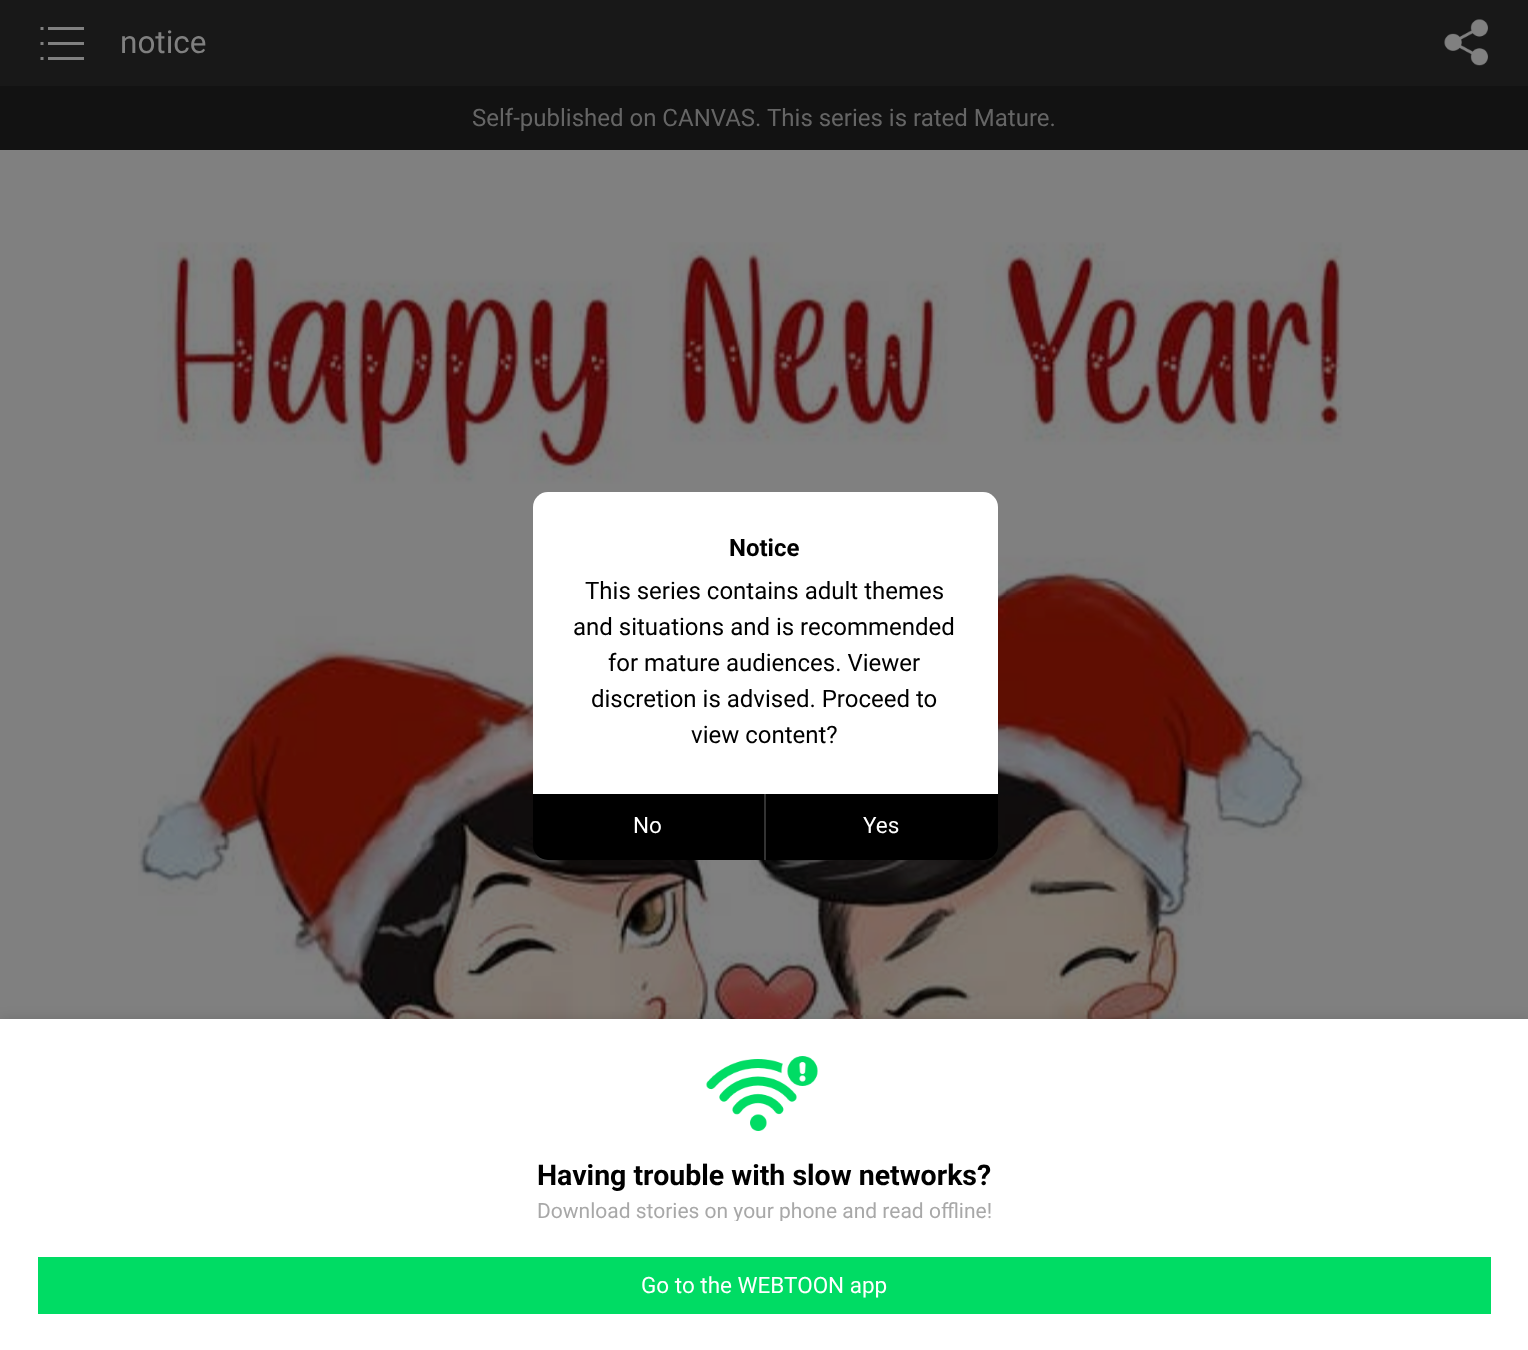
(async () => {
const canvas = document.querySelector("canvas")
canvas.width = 1528
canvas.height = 1350
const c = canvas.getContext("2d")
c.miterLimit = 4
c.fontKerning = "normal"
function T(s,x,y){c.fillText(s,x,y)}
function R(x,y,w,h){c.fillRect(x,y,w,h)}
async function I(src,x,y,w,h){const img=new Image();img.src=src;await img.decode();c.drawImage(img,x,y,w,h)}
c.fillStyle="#808080"
R(0,0,1528,1350)
c.fillStyle="#181818"
R(0,0,1528,86)
await I("1.png",40,27,44,33)
c.font="31.5px Roboto"
c.fillStyle="#808080"
T("notice",120,53)
await I("2.png",1444,19,44,47)
c.fillStyle="#121212"
R(0,86,1528,64)
c.font="24px Roboto"
c.fillStyle="#656565"
T("Self-published on CANVAS.",472,126)
T("This series is rated Mature.",767,126)
await I("3.png",138,242,1205,777)
c.fillStyle="#fff"
c.beginPath()
c.roundRect(533,492,465,302,[15,15,0,0])
c.fill()
c.font="bold 24px Roboto"
c.fillStyle="#000"
T("Notice",729,556)
c.font="24px Roboto"
T("This series contains adult themes",585,599)
T("and situations and is recommended",573,635)
T("for mature audiences. Viewer",608,671)
T("discretion is advised. Proceed to",591,707)
T("view content?",691,743)
c.beginPath()
c.roundRect(533,794,465,66,[0,0,15,15])
c.fill()
c.font="22.5px Roboto"
c.fillStyle="#fff"
T("No",633,833)
c.fillStyle="#333"
R(764,794,2,66)
c.fillStyle="#fff"
T("Yes",863,833)
c.fillStyle="#00000033"
c.filter="blur(7.5px)"
c.beginPath()
c.rect(0,1022,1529,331)
c.fill()
c.filter="none"
c.fillStyle="#fff"
R(0,1019,1528,331)
await I("4.png",706,1056,112,75)
c.font="bold 28.5px Roboto"
c.fillStyle="#000"
T("Having trouble with slow networks?",537,1185)
c.save()
c.beginPath()
c.rect(38,1200,1453,21)
c.clip()
c.font="21px Roboto"
c.fillStyle="#a8a8a8"
T("Download stories on your phone and read offline!",537,1218)
c.restore()
c.fillStyle="#00dc64"
R(38,1257,1453,57)
c.font="22.5px Roboto"
c.fillStyle="#fff"
T("Go to the WEBTOON app",641,1293)
})()
